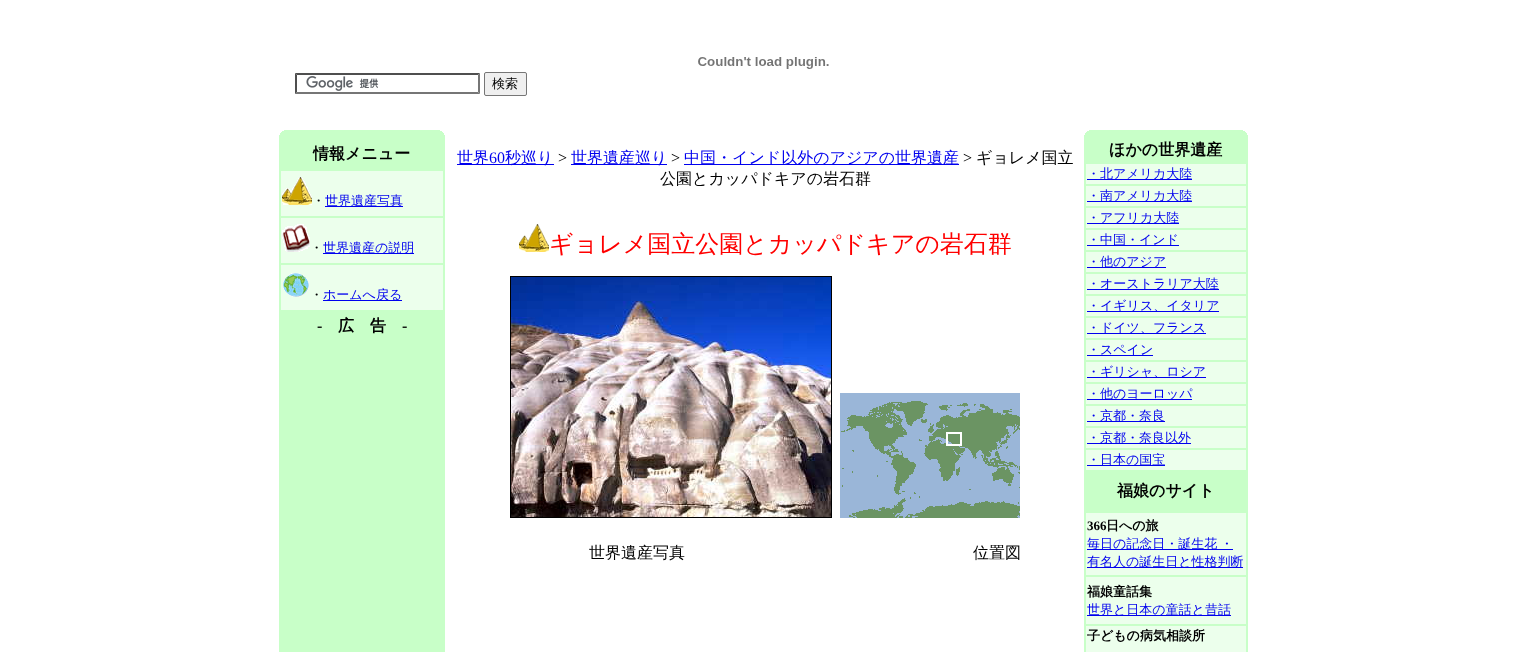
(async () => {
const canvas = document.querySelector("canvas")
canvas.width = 1527
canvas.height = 652
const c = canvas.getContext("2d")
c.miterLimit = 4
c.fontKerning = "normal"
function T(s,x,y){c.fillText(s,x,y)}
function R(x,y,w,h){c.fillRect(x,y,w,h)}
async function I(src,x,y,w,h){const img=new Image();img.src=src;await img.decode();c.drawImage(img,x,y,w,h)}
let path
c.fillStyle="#fff"
R(0,0,1527,652)
await I("1.png",698,57,131,12)
await I("2.png",306,76,73,15)
c.fillStyle="#4f4f4f"
path = new Path2D("M295 73h185l-2 2h-181z")
c.fill(path)
c.fillStyle="#767676"
path = new Path2D("M480 73v21l-2-2v-17z")
c.fill(path)
path = new Path2D("M480 94h-185l2-2h181z")
c.fill(path)
c.fillStyle="#4f4f4f"
path = new Path2D("M295 94v-21l2 2v17z")
c.fill(path)
c.fillStyle="#efefef"
c.beginPath()
c.roundRect(484.5,72.5,42,23,1.5)
c.fill()
c.strokeStyle="#767676"
c.stroke()
c.font="500 13px WenQuanYi Zen Hei"
c.fillStyle="#000"
T("検索",492,88)
c.fillStyle="#c8ffc8"
R(279,130,166,522)
await I("3.png",279,130,5,5)
await I("4.png",440,130,5,5)
c.font="bold 16px WenQuanYi Zen Hei"
c.fillStyle="#000"
T("情報メニュー",313,159)
c.fillStyle="#ecffec"
R(281,171,162,45)
await I("5.png",282,177,30,28)
c.font="500 13px WenQuanYi Zen Hei"
c.fillStyle="#000"
T("・",312,205)
c.fillStyle="#00e"
R(325,206,78,1)
T("世界遺産写真",325,205)
c.fillStyle="#ecffec"
R(281,218,162,45)
await I("6.png",282,224,28,28)
c.fillStyle="#000"
T("・",310,252)
c.fillStyle="#00e"
R(323,253,91,1)
T("世界遺産の説明",323,252)
c.fillStyle="#ecffec"
R(281,265,162,45)
await I("7.png",283,273,26,24)
c.fillStyle="#000"
T("・",310,299)
c.fillStyle="#00e"
R(323,300,79,1)
T("ホームへ戻る",323,299)
c.font="bold 16px Liberation Serif"
c.fillStyle="#000"
T("-",317,331)
c.font="bold 16px WenQuanYi Zen Hei"
T("広　告",338,331)
c.font="bold 16px Liberation Serif"
T("-",402,331)
c.fillStyle="#00e"
R(457,164,97,1)
c.font="500 16px WenQuanYi Zen Hei"
T("世界",457,163)
c.font="16px Liberation Serif"
T("60",489,163)
c.font="500 16px WenQuanYi Zen Hei"
T("秒巡り",505,163)
c.font="16px Liberation Serif"
c.fillStyle="#000"
T(">",558,163)
c.fillStyle="#00e"
R(571,164,96,1)
c.font="500 16px WenQuanYi Zen Hei"
T("世界遺産巡り",571,163)
c.font="16px Liberation Serif"
c.fillStyle="#000"
T(">",671,163)
c.fillStyle="#00e"
R(684,164,275,1)
c.font="500 16px WenQuanYi Zen Hei"
T("中国・インド以外のアジアの世界遺産",684,163)
c.font="16px Liberation Serif"
c.fillStyle="#000"
T(">",963,163)
c.font="500 16px WenQuanYi Zen Hei"
T("ギョレメ国立",976,163)
T("公園とカッパドキアの岩石群",660,184)
await I("8.png",519,224,30,28)
c.font="500 24px WenQuanYi Zen Hei"
c.fillStyle="#f00"
T("ギョレメ国立公園とカッパドキアの岩石群",549,252)
c.strokeStyle="#000"
c.strokeRect(510.5,276.5,321,241)
await I("9.png",511,277,320,240)
await I("10.png",840,393,180,125)
c.font="500 16px WenQuanYi Zen Hei"
c.fillStyle="#000"
T("世界遺産写真　　　　　　　　　　　　　　　　　　位置図",589,558)
c.fillStyle="#c8ffc8"
R(1084,130,164,522)
await I("3.png",1084,130,5,5)
await I("4.png",1243,130,5,5)
c.font="bold 16px WenQuanYi Zen Hei"
c.fillStyle="#000"
T("ほかの世界遺産",1109,155)
c.fillStyle="#ecffec"
R(1086,164,160,20)
c.fillStyle="#00e"
R(1087,179,105,1)
c.font="500 13px WenQuanYi Zen Hei"
T("・北アメリカ大陸",1087,178)
c.fillStyle="#ecffec"
R(1086,186,160,20)
c.fillStyle="#00e"
R(1087,201,105,1)
T("・南アメリカ大陸",1087,200)
c.fillStyle="#ecffec"
R(1086,208,160,20)
c.fillStyle="#00e"
R(1087,223,92,1)
T("・アフリカ大陸",1087,222)
c.fillStyle="#ecffec"
R(1086,230,160,20)
c.fillStyle="#00e"
R(1087,245,92,1)
T("・中国・インド",1087,244)
c.fillStyle="#ecffec"
R(1086,252,160,20)
c.fillStyle="#00e"
R(1087,267,79,1)
T("・他のアジア",1087,266)
c.fillStyle="#ecffec"
R(1086,274,160,20)
c.fillStyle="#00e"
R(1087,289,132,1)
T("・オーストラリア大陸",1087,288)
c.fillStyle="#ecffec"
R(1086,296,160,20)
c.fillStyle="#00e"
R(1087,311,132,1)
T("・イギリス、イタリア",1087,310)
c.fillStyle="#ecffec"
R(1086,318,160,20)
c.fillStyle="#00e"
R(1087,333,119,1)
T("・ドイツ、フランス",1087,332)
c.fillStyle="#ecffec"
R(1086,340,160,20)
c.fillStyle="#00e"
R(1087,355,66,1)
T("・スペイン",1087,354)
c.fillStyle="#ecffec"
R(1086,362,160,20)
c.fillStyle="#00e"
R(1087,377,119,1)
T("・ギリシャ、ロシア",1087,376)
c.fillStyle="#ecffec"
R(1086,384,160,20)
c.fillStyle="#00e"
R(1087,399,105,1)
T("・他のヨーロッパ",1087,398)
c.fillStyle="#ecffec"
R(1086,406,160,20)
c.fillStyle="#00e"
R(1087,421,78,1)
T("・京都・奈良",1087,420)
c.fillStyle="#ecffec"
R(1086,428,160,20)
c.fillStyle="#00e"
R(1087,443,104,1)
T("・京都・奈良以外",1087,442)
c.fillStyle="#ecffec"
R(1086,450,160,20)
c.fillStyle="#00e"
R(1087,465,78,1)
T("・日本の国宝",1087,464)
c.font="bold 16px WenQuanYi Zen Hei"
c.fillStyle="#000"
T("福娘のサイト",1117,496)
c.fillStyle="#ecffec"
R(1086,513,160,62)
c.font="bold 13px Liberation Serif"
c.fillStyle="#000"
T("366",1087,530)
c.font="bold 13px WenQuanYi Zen Hei"
T("日への旅",1106,530)
c.fillStyle="#00e"
R(1087,549,146,1)
c.wordSpacing="-1px"
c.font="500 13px WenQuanYi Zen Hei"
T("毎日の記念日・誕生花 ・",1087,548)
R(1087,567,156,1)
c.wordSpacing="0px"
T("有名人の誕生日と性格判断",1087,566)
c.fillStyle="#ecffec"
R(1086,577,160,47)
c.font="bold 13px WenQuanYi Zen Hei"
c.fillStyle="#000"
T("福娘童話集",1087,596)
c.fillStyle="#00e"
R(1087,615,144,1)
c.font="500 13px WenQuanYi Zen Hei"
T("世界と日本の童話と昔話",1087,614)
c.fillStyle="#ecffec"
R(1086,626,160,26)
c.font="bold 13px WenQuanYi Zen Hei"
c.fillStyle="#000"
T("子どもの病気相談所",1087,640)
})()
